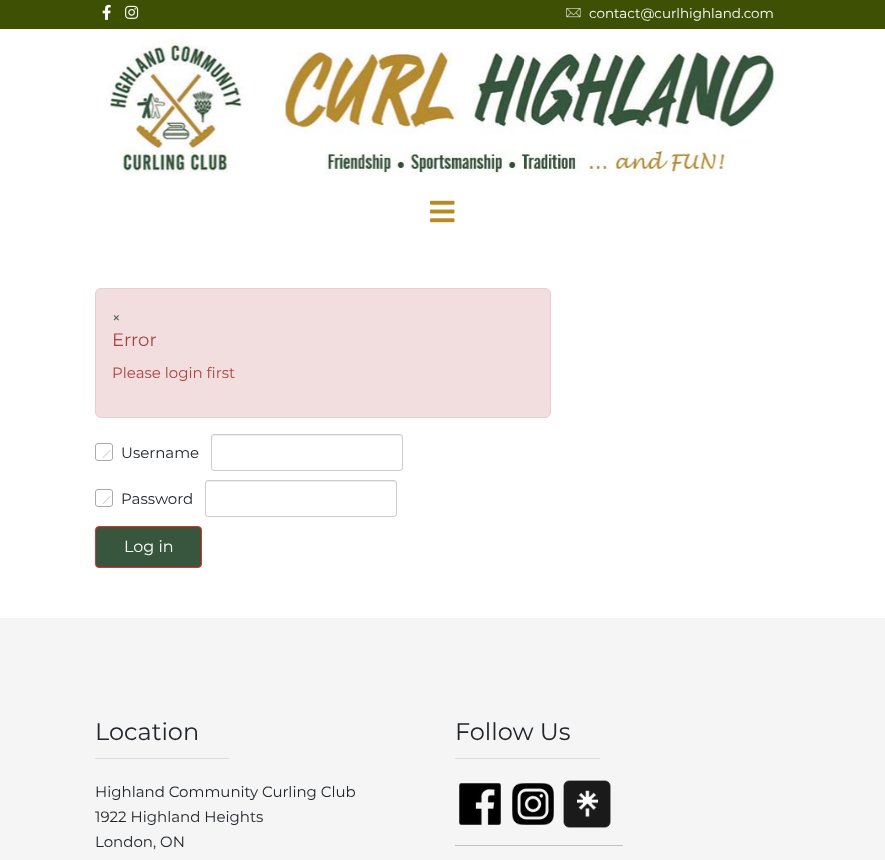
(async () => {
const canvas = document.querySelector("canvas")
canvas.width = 885
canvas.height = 860
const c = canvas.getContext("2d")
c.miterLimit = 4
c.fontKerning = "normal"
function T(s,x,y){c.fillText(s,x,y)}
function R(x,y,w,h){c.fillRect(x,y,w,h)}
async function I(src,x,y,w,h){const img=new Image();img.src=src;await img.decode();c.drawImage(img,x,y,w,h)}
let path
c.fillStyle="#fff"
R(0,0,885,860)
c.fillStyle="#3e5004"
R(0,0,885,29)
await I("1.png",102,4,9,16)
await I("2.png",125,5,14,14)
await I("3.png",566,8,15,10)
c.font="13.5px Montserrat"
c.fillStyle="#fff"
T("contact@curlhighland.com",589,18)
await I("4.png",108,39,669,135)
await I("5.png",430,200,25,23)
c.fillStyle="#f2dede"
c.beginPath()
c.roundRect(95.5,288.5,455,129,5.5)
c.fill()
c.strokeStyle="#ebccd1"
c.stroke()
c.font="15px Montserrat"
c.fillStyle="#38563d"
T("×",112,323)
c.font="18px Montserrat"
c.fillStyle="#a94442"
T("Error",112,346)
c.font="15px Montserrat"
T("Please login first",112,378)
c.beginPath()
c.roundRect(95.5,443.5,17,17,2.5)
c.strokeStyle="#aaa"
c.stroke()
c.fillStyle="#212529"
T("Username",121,458)
c.fillStyle="#bfbfbf"
path = new Path2D("M98.5 454l3.5 3zm4 3.5l.5 .5l7.5-7.5l-.5-.5zm4.5-11l-.5-.5z")
c.fill(path,"evenodd")
c.fillStyle="#fff"
path = new Path2D("M101 456l7.5-8l1.5 1.5l-8 8z")
c.fill(path)
path = new Path2D("M98 453l1.5-1.5l4 4.5l-1.5 1.5z")
c.fill(path)
c.fillStyle="#ececec"
path = new Path2D("M214 436h186l2 1v1v-1c0-1-1-2-2-2h-186c-1 0-2 1-2 2v1c0-1 1-2 2-2z")
c.fill(path)
c.beginPath()
c.roundRect(211.5,434.5,191,36,2.5)
c.strokeStyle="#ccc"
c.stroke()
c.beginPath()
c.roundRect(95.5,489.5,17,17,2.5)
c.strokeStyle="#aaa"
c.stroke()
c.fillStyle="#212529"
T("Password",121,504)
c.fillStyle="#bfbfbf"
path = new Path2D("M98.5 500l3.5 3zm4 3.5l.5 .5l7.5-7.5l-.5-.5zm4.5-11l-.5-.5z")
c.fill(path,"evenodd")
c.fillStyle="#fff"
path = new Path2D("M101 502l7.5-8l1.5 1.5l-8 8z")
c.fill(path)
path = new Path2D("M98 499l1.5-1.5l4 4.5l-1.5 1.5z")
c.fill(path)
c.fillStyle="#ececec"
path = new Path2D("M208 482h186l2 1v1v-1c0-1-1-2-2-2h-186c-1 0-2 1-2 2v1c0-1 1-2 2-2z")
c.fill(path)
c.beginPath()
c.roundRect(205.5,480.5,191,36,2.5)
c.strokeStyle="#ccc"
c.stroke()
c.fillStyle="#38563d"
c.beginPath()
c.roundRect(95.5,526.5,106,41,3.5)
c.fill()
c.strokeStyle="#e82e2b"
c.stroke()
c.font="16px Montserrat"
c.fillStyle="#fff"
T("Log in",124,552)
c.fillStyle="#f5f5f5"
R(0,618,885,242)
c.fillStyle="#ddd"
R(95,758,134,1)
c.font="24px Montserrat"
c.fillStyle="#212529"
T("Location",95,740)
c.font="15px Montserrat"
T("Highland Community Curling Club",95,797)
T("1922 Highland Heights",95,822)
T("London, ON",95,847)
c.fillStyle="#ddd"
R(455,758,145,1)
c.font="24px Montserrat"
c.fillStyle="#212529"
T("Follow Us",455,740)
await I("6.png",459,783,42,42)
await I("7.png",512,783,42,42)
await I("8.png",563,780,48,48)
c.fillStyle="#c0c1c2"
R(455,845,168,1)
})()
